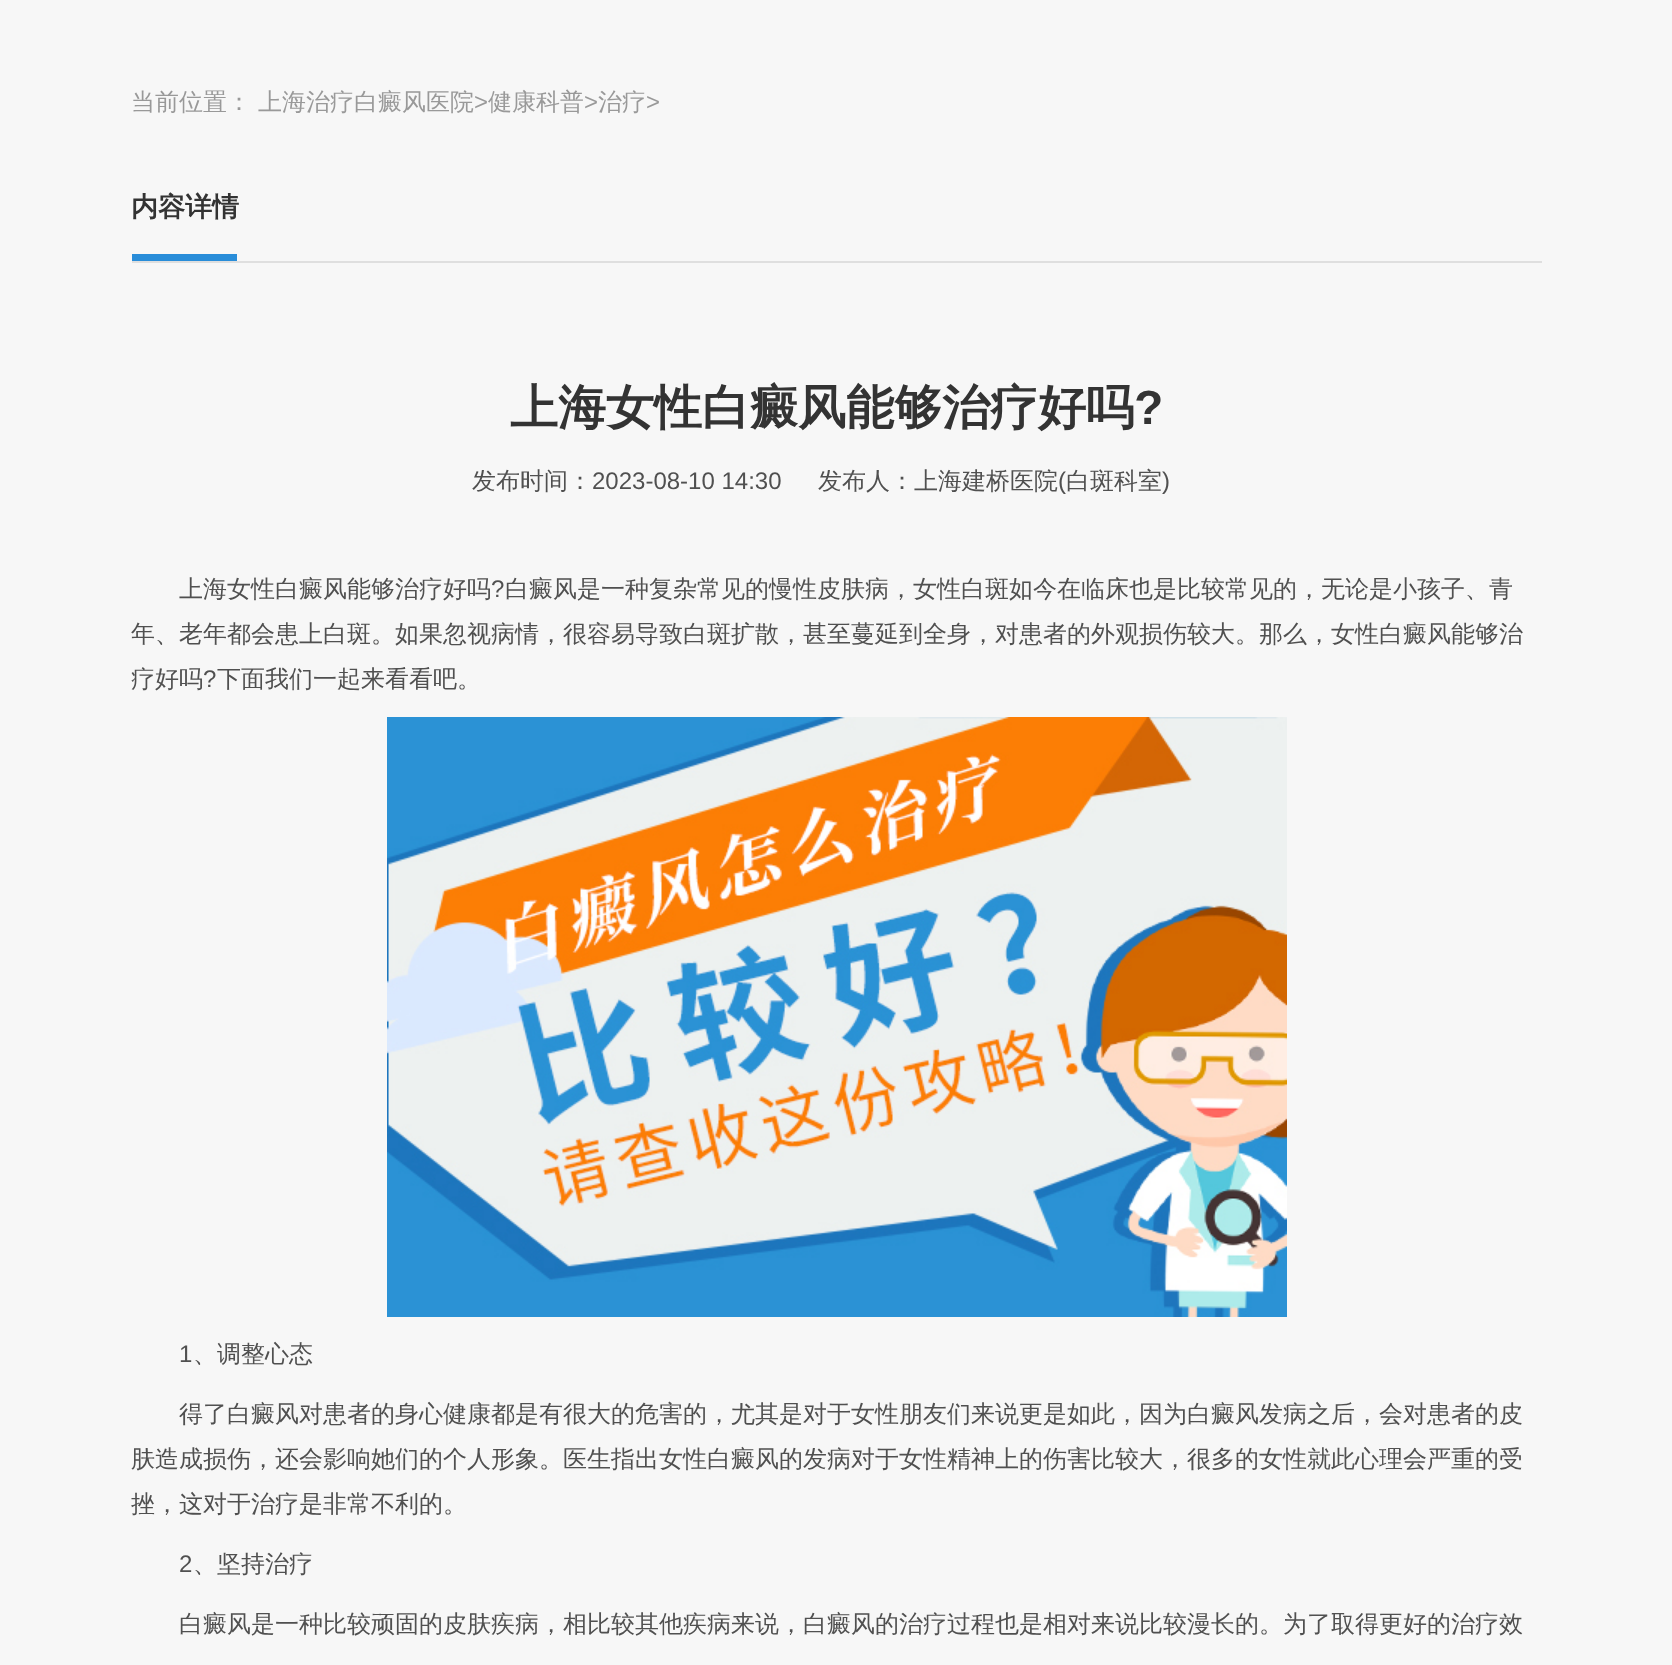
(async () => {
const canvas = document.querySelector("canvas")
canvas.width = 1672
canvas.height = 1665
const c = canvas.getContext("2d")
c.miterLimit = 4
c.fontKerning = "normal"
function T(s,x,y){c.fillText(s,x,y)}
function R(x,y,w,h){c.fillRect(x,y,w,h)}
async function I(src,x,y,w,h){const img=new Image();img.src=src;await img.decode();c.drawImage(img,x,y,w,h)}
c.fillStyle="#f7f7f7"
R(0,0,1672,1665)
c.font="500 24px WenQuanYi Zen Hei"
c.fillStyle="#999"
T("当前位置：",131,110)
T("上海治疗白癜风医院",258,110)
c.font="24px Liberation Sans"
T(">",474,110)
c.font="500 24px WenQuanYi Zen Hei"
T("健康科普",488,110)
c.font="24px Liberation Sans"
T(">",584,110)
c.font="500 24px WenQuanYi Zen Hei"
T("治疗",598,110)
c.font="24px Liberation Sans"
T(">",646,110)
c.fillStyle="#dfdfdf"
R(132,261,1410,2)
c.font="bold 27px WenQuanYi Zen Hei"
c.fillStyle="#333"
T("内容详情",131,216)
c.fillStyle="#298dd9"
R(132,254,105,7)
c.font="bold 48px WenQuanYi Zen Hei"
c.fillStyle="#333"
T("上海女性白癜风能够治疗好吗",510,424)
c.font="bold 48px Liberation Sans"
T("?",1134,424)
c.font="500 24px WenQuanYi Zen Hei"
c.fillStyle="#505050"
T("发布时间：",472,489)
c.font="24px Liberation Sans"
T("2023-08-10 14:30",592,489)
c.font="500 24px WenQuanYi Zen Hei"
T("发布人：上海建桥医院",818,489)
c.font="24px Liberation Sans"
T("(",1058,489)
c.font="500 24px WenQuanYi Zen Hei"
T("白斑科室",1066,489)
c.font="24px Liberation Sans"
T(")",1162,489)
c.font="500 24px WenQuanYi Zen Hei"
T("上海女性白癜风能够治疗好吗",179,597)
c.font="24px Liberation Sans"
T("?",491,597)
c.font="500 24px WenQuanYi Zen Hei"
T("白癜风是一种复杂常见的慢性皮肤病，女性白斑如今在临床也是比较常见的，无论是小孩子、青",505,597)
T("年、老年都会患上白斑。如果忽视病情，很容易导致白斑扩散，甚至蔓延到全身，对患者的外观损伤较大。那么，女性白癜风能够治",131,642)
T("疗好吗",131,687)
c.font="24px Liberation Sans"
T("?",203,687)
c.font="500 24px WenQuanYi Zen Hei"
T("下面我们一起来看看吧。",217,687)
await I("1.png",387,717,900,600)
c.font="24px Liberation Sans"
T("1",179,1362)
c.font="500 24px WenQuanYi Zen Hei"
T("、调整心态",193,1362)
T("得了白癜风对患者的身心健康都是有很大的危害的，尤其是对于女性朋友们来说更是如此，因为白癜风发病之后，会对患者的皮",179,1422)
T("肤造成损伤，还会影响她们的个人形象。医生指出女性白癜风的发病对于女性精神上的伤害比较大，很多的女性就此心理会严重的受",131,1467)
T("挫，这对于治疗是非常不利的。",131,1512)
c.font="24px Liberation Sans"
T("2",179,1572)
c.font="500 24px WenQuanYi Zen Hei"
T("、坚持治疗",193,1572)
T("白癜风是一种比较顽固的皮肤疾病，相比较其他疾病来说，白癜风的治疗过程也是相对来说比较漫长的。为了取得更好的治疗效",179,1632)
})()
